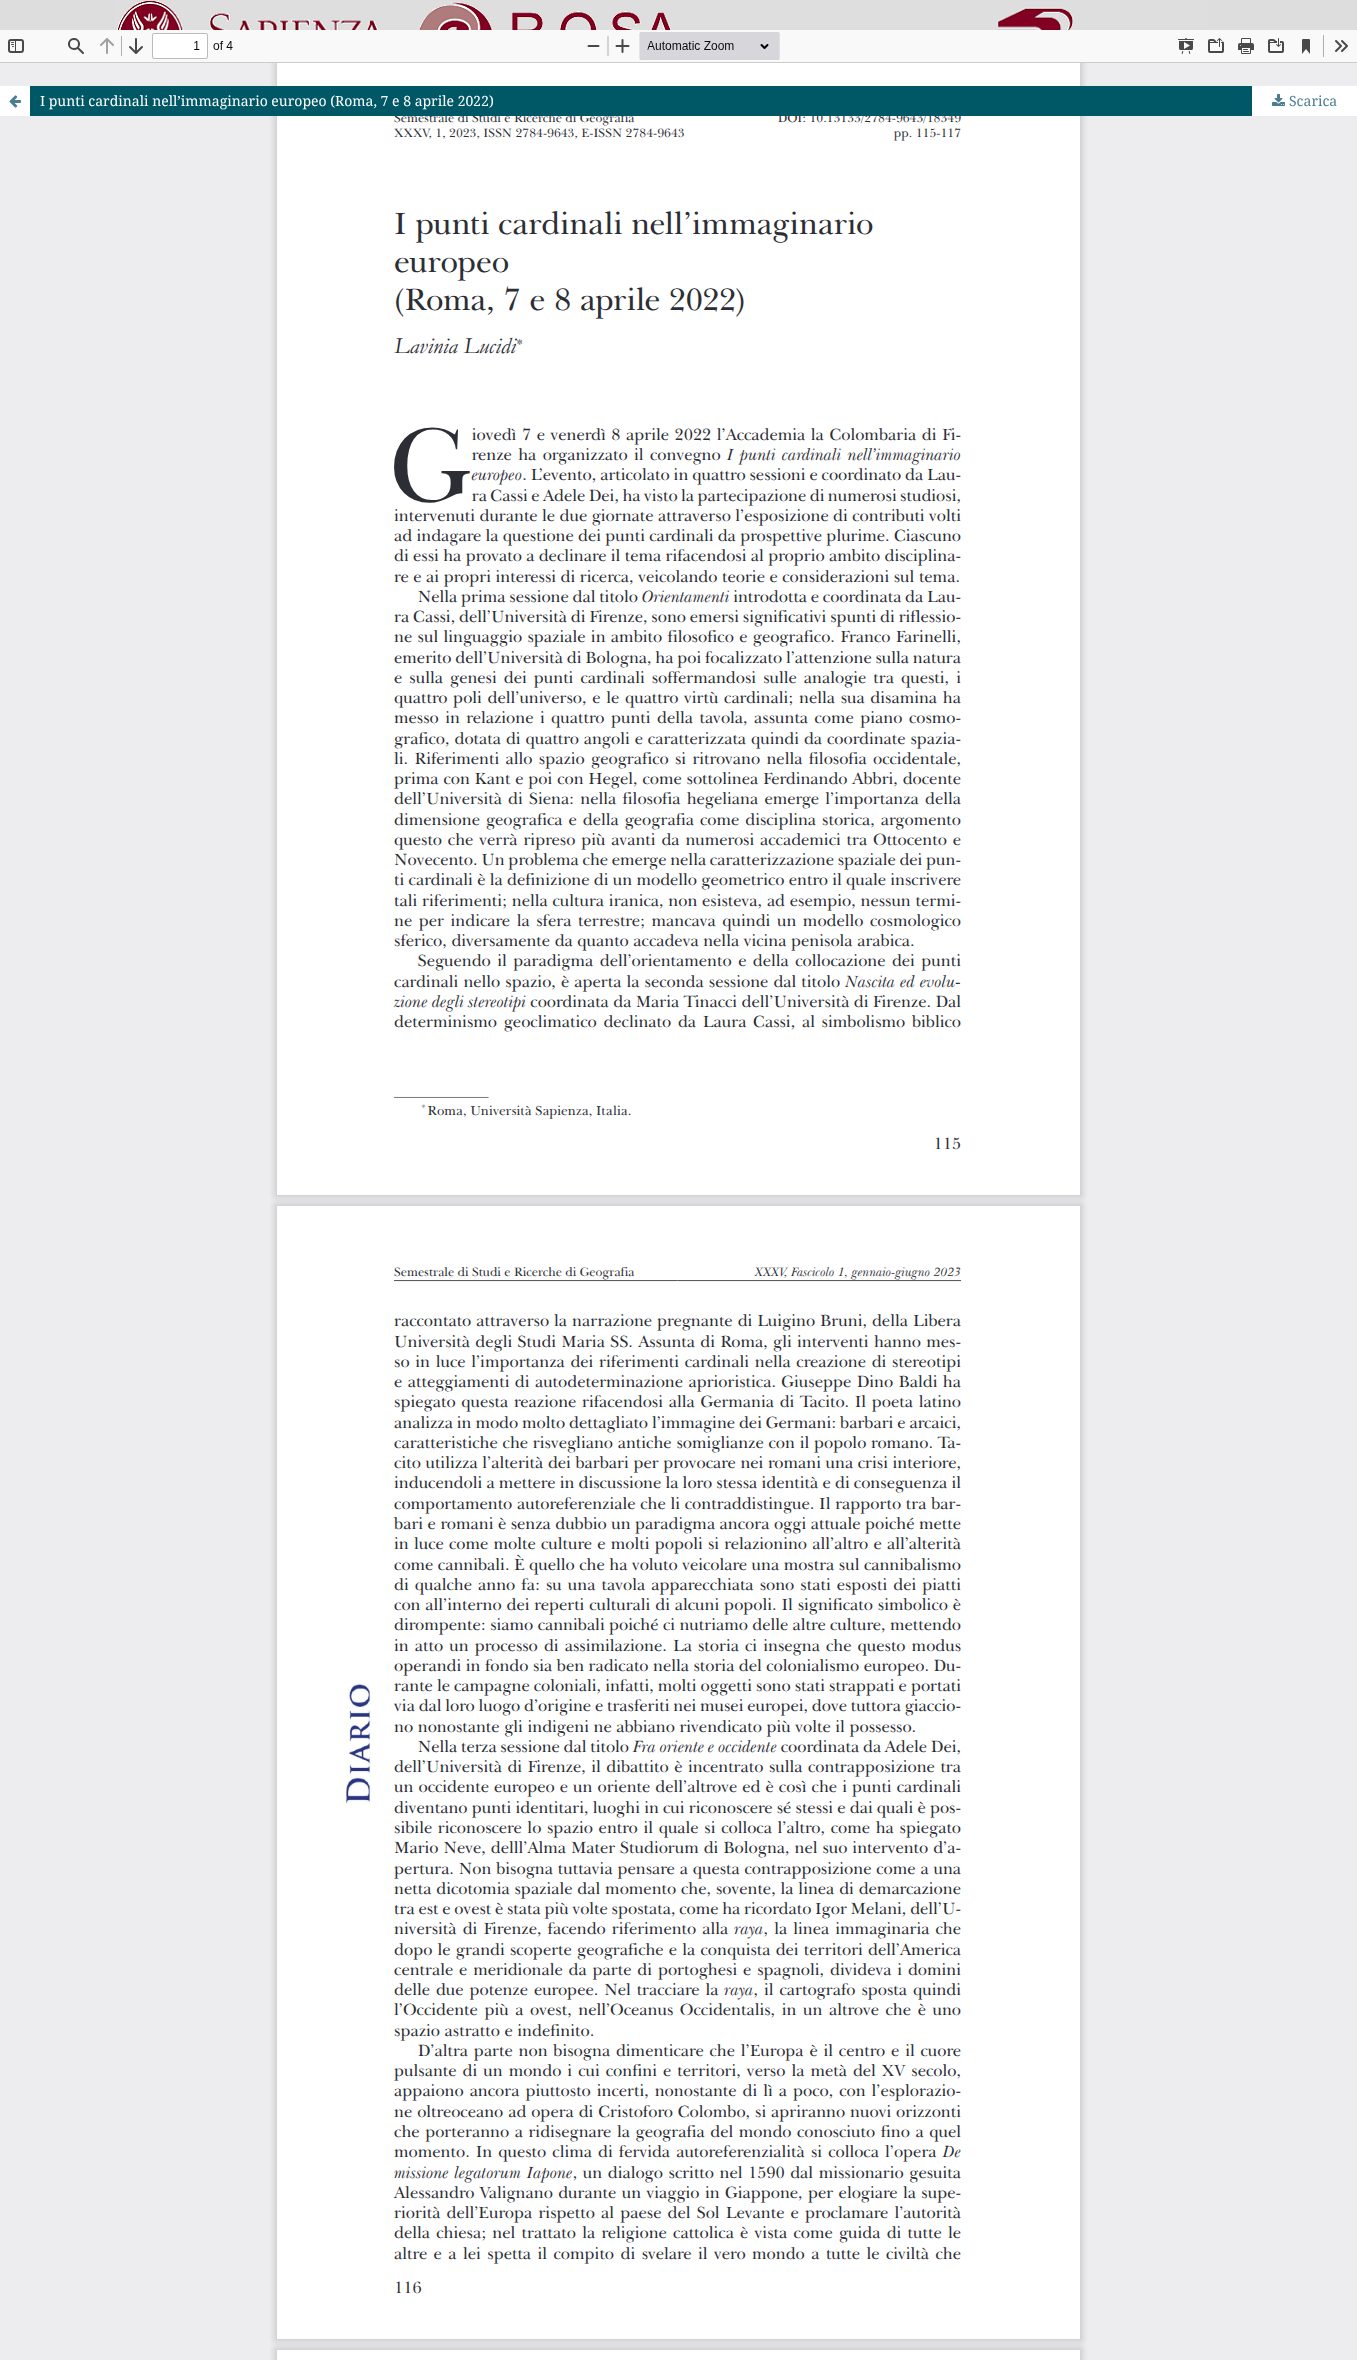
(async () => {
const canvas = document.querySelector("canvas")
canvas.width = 1357
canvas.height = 2360
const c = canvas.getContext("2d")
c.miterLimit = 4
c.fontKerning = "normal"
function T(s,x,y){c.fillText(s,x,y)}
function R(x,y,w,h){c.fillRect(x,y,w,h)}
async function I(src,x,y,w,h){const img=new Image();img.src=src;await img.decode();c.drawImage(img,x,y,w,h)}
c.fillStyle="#ddd"
R(0,0,1357,2360)
await I("1.png",115,1,1093,29)
await I("2.png",0,30,1357,2330)
c.fillStyle="#005866"
R(30,86,1222,30)
c.fillStyle="#fff"
R(0,86,30,30)
await I("3.png",9,95,12,13)
c.font="14px Noto Serif"
T("I punti cardinali nell’immaginario europeo (Roma, 7 e 8 aprile 2022)",40,106)
R(1252,86,105,30)
await I("4.png",1272,94,13,12)
c.fillStyle="#4b7d92"
T("Scarica",1289,106)
})()
